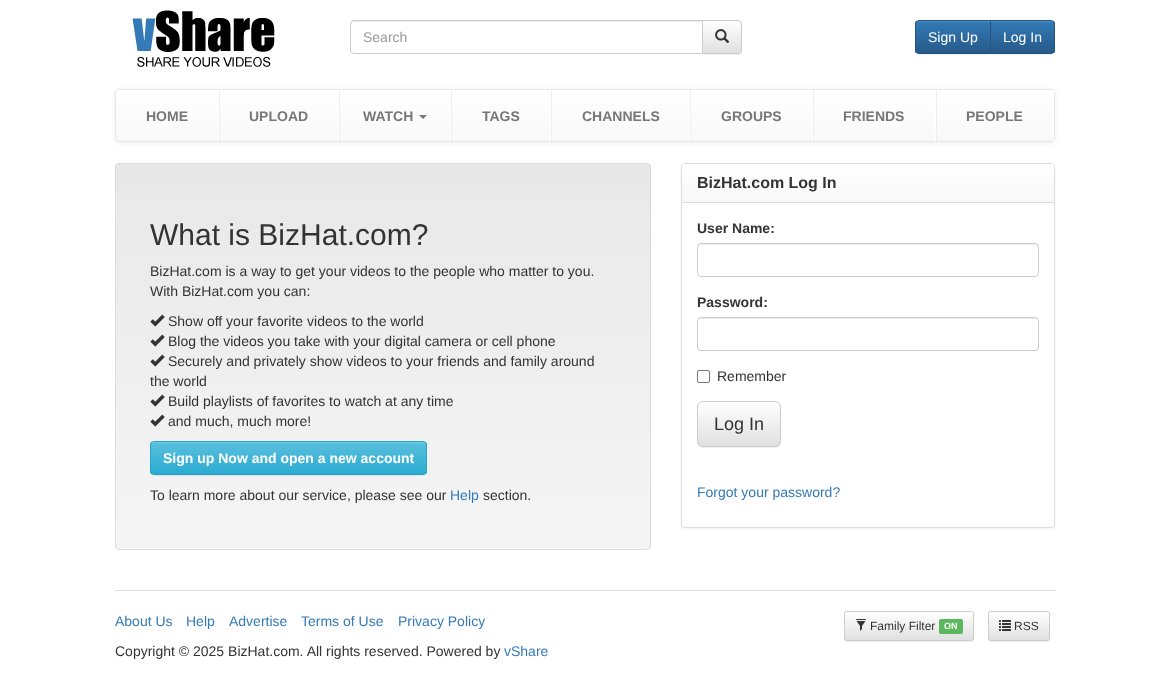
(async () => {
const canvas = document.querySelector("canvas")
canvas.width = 1170
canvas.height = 696
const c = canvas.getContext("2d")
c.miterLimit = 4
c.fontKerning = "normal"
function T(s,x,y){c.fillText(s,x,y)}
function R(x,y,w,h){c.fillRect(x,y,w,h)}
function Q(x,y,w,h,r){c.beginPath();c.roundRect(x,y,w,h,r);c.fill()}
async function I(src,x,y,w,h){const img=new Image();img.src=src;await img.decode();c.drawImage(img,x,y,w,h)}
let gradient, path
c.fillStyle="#fff"
R(0,0,1170,696)
await I("1.png",132,10,143,57)
c.fillStyle="#00000012"
c.filter="blur(0.5px)"
c.beginPath()
c.roundRect(702,21,40,34,4)
c.fill()
c.filter="none"
c.save()
c.beginPath()
c.roundRect(702,20,40,34,[0,4,4,0])
c.clip()
gradient = c.createLinearGradient(722,21,722,53)
gradient.addColorStop(0,"#fff")
gradient.addColorStop(1,"#e0e0e0")
c.fillStyle = gradient
R(703,21,39,32)
c.restore()
c.beginPath()
c.roundRect(702.5,20.5,39,33,[0,3.5,3.5,0])
c.strokeStyle="#ccc"
c.stroke()
c.fillStyle="#fff"
c.beginPath()
c.roundRect(350,20,353,34,[4,0,0,4])
c.fill()
c.fillStyle="#ececec"
path = new Path2D("M354 22h348v-1h-348c-2 0-3 1-3 3v1c0-2 1-3 3-3z")
c.fill(path)
c.beginPath()
c.roundRect(350.5,20.5,352,33,[3.5,0,0,3.5])
c.stroke()
c.font="14px Liberation Sans"
c.fillStyle="#999"
T("Search",363,42)
await I("2.png",715,29,15,14)
c.fillStyle="#00000012"
c.filter="blur(0.5px)"
c.beginPath()
c.roundRect(915,21,76,34,4)
c.fill()
c.filter="none"
c.save()
c.beginPath()
c.roundRect(915,20,76,34,[4,0,0,4])
c.clip()
gradient = c.createLinearGradient(953,21,953,53)
gradient.addColorStop(0,"#337ab7")
gradient.addColorStop(1,"#265a88")
c.fillStyle = gradient
R(915,21,75,32)
c.restore()
c.fillStyle="#528ec1"
path = new Path2D("M919 22h71v-1h-71c-2 0-3 1-3 3v1c0-2 1-3 3-3z")
c.fill(path)
c.beginPath()
c.roundRect(915.5,20.5,75,33,[3.5,0,0,3.5])
c.strokeStyle="#245580"
c.stroke()
c.fillStyle="#fff"
T("Sign Up",928,42)
c.fillStyle="#00000012"
c.filter="blur(0.5px)"
c.beginPath()
c.roundRect(990,21,65,34,4)
c.fill()
c.filter="none"
c.save()
c.beginPath()
c.roundRect(990,20,65,34,[0,4,4,0])
c.clip()
gradient = c.createLinearGradient(1023,21,1023,53)
gradient.addColorStop(0,"#337ab7")
gradient.addColorStop(1,"#265a88")
c.fillStyle = gradient
R(991,21,64,32)
c.restore()
c.fillStyle="#528ec1"
path = new Path2D("M991 22h60c2 0 3 1 3 3v-1c0-2-1-3-3-3h-60z")
c.fill(path)
c.beginPath()
c.roundRect(990.5,20.5,64,33,[0,3.5,3.5,0])
c.stroke()
c.fillStyle="#fff"
T("Log In",1003,42)
c.fillStyle="#00000012"
c.filter="blur(2.5px)"
c.beginPath()
c.roundRect(115,90,940,53,4)
c.fill()
c.filter="none"
c.save()
c.beginPath()
c.roundRect(115,89,940,53,4)
c.clip()
gradient = c.createLinearGradient(585,90,585,141)
gradient.addColorStop(0,"#fff")
gradient.addColorStop(1,"#f8f8f8")
c.fillStyle = gradient
R(115,90,940,51)
c.restore()
c.beginPath()
c.roundRect(115.5,89.5,939,52,3.5)
c.strokeStyle="#e7e7e7"
c.stroke()
c.fillStyle="#fff"
R(116,90,2,1)
R(218,108,1,33)
c.font="bold 14px Liberation Sans"
c.fillStyle="#777"
T("HOME",146,121)
c.fillStyle="#fff"
R(338,108,1,33)
c.fillStyle="#eee"
R(219,90,1,51)
c.fillStyle="#777"
T("UPLOAD",249,121)
c.fillStyle="#fff"
R(450,108,1,33)
c.fillStyle="#eee"
R(339,90,1,51)
c.fillStyle="#777"
T("WATCH",363,121)
path = new Path2D("M419 115h8l-4 4z")
c.fill(path)
c.fillStyle="#fff"
R(550,108,1,33)
c.fillStyle="#eee"
R(451,90,1,51)
c.fillStyle="#777"
T("TAGS",482,121)
c.fillStyle="#fff"
R(689,108,1,33)
c.fillStyle="#eee"
R(551,90,1,51)
c.fillStyle="#777"
T("CHANNELS",582,121)
c.fillStyle="#fff"
R(812,108,1,33)
c.fillStyle="#eee"
R(690,90,1,51)
c.fillStyle="#777"
T("GROUPS",721,121)
c.fillStyle="#fff"
R(935,108,1,33)
c.fillStyle="#eee"
R(813,90,1,51)
c.fillStyle="#777"
T("FRIENDS",843,121)
c.fillStyle="#fff"
R(1052,90,2,1)
R(1053,90,1,51)
c.fillStyle="#eee"
R(936,90,1,51)
c.fillStyle="#777"
T("PEOPLE",966,121)
c.save()
c.beginPath()
c.roundRect(115,163,536,387,4)
c.clip()
gradient = c.createLinearGradient(383,164,383,549)
gradient.addColorStop(0,"#e8e8e8")
gradient.addColorStop(1,"#f5f5f5")
c.fillStyle = gradient
R(115,164,536,385)
c.restore()
c.beginPath()
c.roundRect(115.5,163.5,535,386,3.5)
c.strokeStyle="#dcdcdc"
c.stroke()
c.font="30px Liberation Sans"
c.fillStyle="#333"
T("What is BizHat.com?",150,245)
c.font="14px Liberation Sans"
T("BizHat.com is a way to get your videos to the people who matter to you.",150,276)
T("With BizHat.com you can:",150,296)
await I("3.png",150,314,15,13)
T("Show off your favorite videos to the world",168,326)
await I("4.png",150,334,15,13)
T("Blog the videos you take with your digital camera or cell phone",168,346)
await I("5.png",150,354,15,13)
T("Securely and privately show videos to your friends and family around",168,366)
T("the world",150,386)
await I("6.png",150,394,15,13)
T("Build playlists of favorites to watch at any time",168,406)
await I("7.png",150,414,15,13)
T("and much, much more!",168,426)
c.fillStyle="#00000012"
c.filter="blur(0.5px)"
c.beginPath()
c.roundRect(150,442,277,34,4)
c.fill()
c.filter="none"
c.save()
c.beginPath()
c.roundRect(150,441,277,34,4)
c.clip()
gradient = c.createLinearGradient(289,442,289,474)
gradient.addColorStop(0,"#5bc0de")
gradient.addColorStop(1,"#2aabd2")
c.fillStyle = gradient
R(150,442,277,32)
c.restore()
c.fillStyle="#73c9e3"
path = new Path2D("M154 443h269c2 0 3 1 3 3v-1c0-2-1-3-3-3h-269c-2 0-3 1-3 3v1c0-2 1-3 3-3z")
c.fill(path)
c.beginPath()
c.roundRect(150.5,441.5,276,33,3.5)
c.strokeStyle="#28a4c9"
c.stroke()
c.font="bold 14px Liberation Sans"
c.fillStyle="#fff"
T("Sign up Now and open a new account",163,463)
c.font="14px Liberation Sans"
c.fillStyle="#333"
T("To learn more about our service, please see our",150,500)
c.fillStyle="#337ab7"
T("Help",450,500)
c.fillStyle="#333"
T("section.",483,500)
c.fillStyle="#0000000d"
c.filter="blur(1px)"
c.beginPath()
c.roundRect(681,164,374,365,4)
c.fill()
c.filter="none"
c.fillStyle="#fff"
c.beginPath()
c.roundRect(681.5,163.5,373,364,3.5)
c.fill()
c.strokeStyle="#ddd"
c.stroke()
gradient = c.createLinearGradient(868,164,868,202)
gradient.addColorStop(0,"#fff")
gradient.addColorStop(1,"#f8f8f8")
c.fillStyle = gradient
c.beginPath()
c.roundRect(682,164,372,38,[3,3,0,0])
c.fill()
c.fillStyle="#ddd"
R(682,202,372,1)
c.font="bold 16px Liberation Sans"
c.fillStyle="#333"
T("BizHat.com Log In",697,188)
c.font="bold 14px Liberation Sans"
T("User Name:",697,233)
c.fillStyle="#ececec"
path = new Path2D("M701 245h334c2 0 3 1 3 3c0-2-1-4-3-4h-334c-2 0-3 2-3 4c0-2 1-3 3-3z")
c.fill(path)
c.beginPath()
c.roundRect(697.5,243.5,341,33,3.5)
c.strokeStyle="#ccc"
c.stroke()
c.fillStyle="#333"
T("Password:",697,307)
c.fillStyle="#ececec"
path = new Path2D("M701 319h334c2 0 3 1 3 3c0-2-1-4-3-4h-334c-2 0-3 2-3 4c0-2 1-3 3-3z")
c.fill(path)
c.beginPath()
c.roundRect(697.5,317.5,341,33,3.5)
c.stroke()
c.beginPath()
c.roundRect(697.5,370.5,12,12,1.5)
c.strokeStyle="#767676"
c.stroke()
c.font="14px Liberation Sans"
c.fillStyle="#333"
T("Remember",717,381)
c.fillStyle="#00000012"
c.filter="blur(0.5px)"
c.beginPath()
c.roundRect(697,402,84,46,6)
c.fill()
c.filter="none"
c.save()
c.beginPath()
c.roundRect(697,401,84,46,6)
c.clip()
gradient = c.createLinearGradient(739,402,739,446)
gradient.addColorStop(0,"#fff")
gradient.addColorStop(1,"#e0e0e0")
c.fillStyle = gradient
R(697,402,84,44)
c.restore()
c.beginPath()
c.roundRect(697.5,401.5,83,45,5.5)
c.strokeStyle="#ccc"
c.stroke()
c.font="18px Liberation Sans"
c.fillStyle="#333"
T("Log In",714,430)
c.font="14px Liberation Sans"
c.fillStyle="#337ab7"
T("Forgot your password?",697,497)
c.fillStyle="#ddd"
R(115,590,940,1)
c.fillStyle="#337ab7"
T("About Us",115,626)
T("Help",186,626)
T("Advertise",229,626)
T("Terms of Use",301,626)
T("Privacy Policy",398,626)
c.fillStyle="#333"
T("Copyright © 2025 BizHat.com. All rights reserved. Powered by",115,656)
c.fillStyle="#337ab7"
T("vShare",504,656)
c.fillStyle="#00000012"
c.filter="blur(0.5px)"
c.beginPath()
c.roundRect(844,612,130,30,3)
c.fill()
c.filter="none"
c.save()
c.beginPath()
c.roundRect(844,611,130,30,3)
c.clip()
gradient = c.createLinearGradient(909,612,909,640)
gradient.addColorStop(0,"#fff")
gradient.addColorStop(1,"#e0e0e0")
c.fillStyle = gradient
R(844,612,130,28)
c.restore()
c.beginPath()
c.roundRect(844.5,611.5,129,29,2.5)
c.stroke()
await I("8.png",856,619,10,12)
c.font="12px Liberation Sans"
c.fillStyle="#333"
T("Family Filter",870,630)
c.fillStyle="#5cb85c"
Q(939,619,24,15,2)
c.font="bold 9px Liberation Sans"
c.fillStyle="#fff"
T("ON",944,629)
c.fillStyle="#00000012"
c.filter="blur(0.5px)"
c.beginPath()
c.roundRect(988,612,62,30,3)
c.fill()
c.filter="none"
c.save()
c.beginPath()
c.roundRect(988,611,62,30,3)
c.clip()
gradient = c.createLinearGradient(1019,612,1019,640)
gradient.addColorStop(0,"#fff")
gradient.addColorStop(1,"#e0e0e0")
c.fillStyle = gradient
R(988,612,62,28)
c.restore()
c.beginPath()
c.roundRect(988.5,611.5,61,29,2.5)
c.stroke()
await I("9.png",999,620,12,11)
c.font="12px Liberation Sans"
c.fillStyle="#333"
T("RSS",1014,630)
})()
